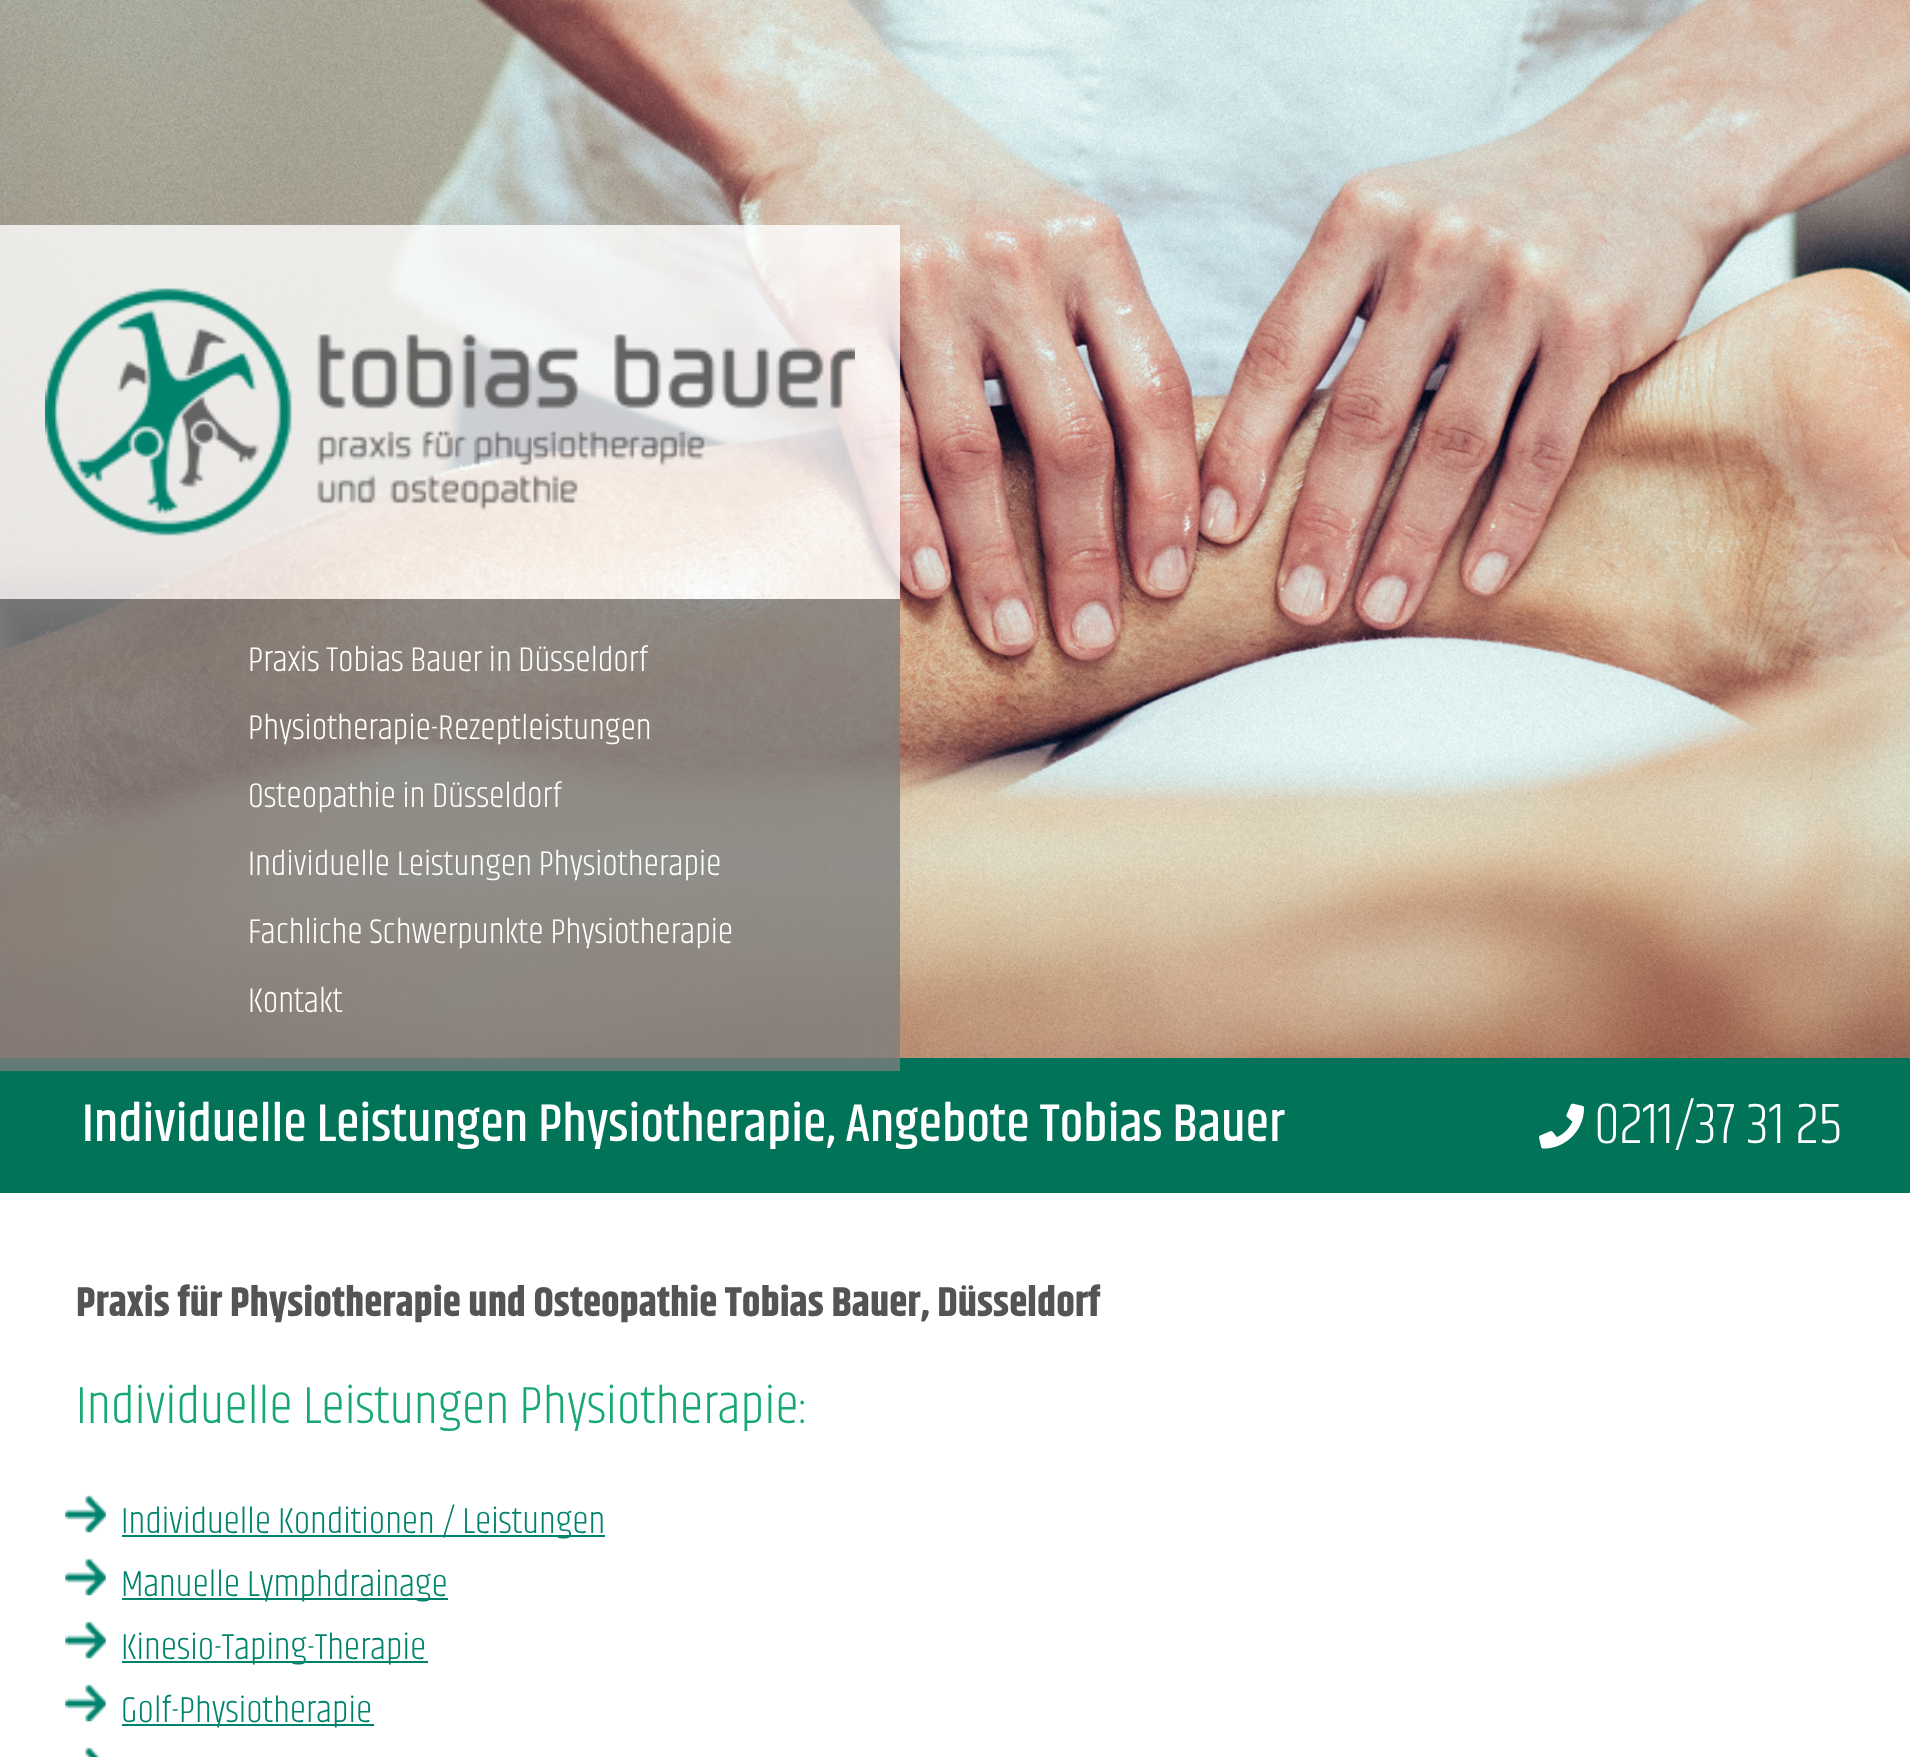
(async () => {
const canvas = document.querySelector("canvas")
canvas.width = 1910
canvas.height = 1757
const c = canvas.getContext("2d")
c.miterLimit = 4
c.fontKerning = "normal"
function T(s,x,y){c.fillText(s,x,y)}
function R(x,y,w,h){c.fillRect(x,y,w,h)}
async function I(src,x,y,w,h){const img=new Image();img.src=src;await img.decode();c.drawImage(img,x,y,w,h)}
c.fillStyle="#fff"
R(0,0,1910,1757)
await I("2.png",0,0,1910,1058)
c.fillStyle="#ffffffcc"
R(0,225,900,374)
await I("1.png",45,288,810,248)
c.fillStyle="#007358"
R(0,1058,1910,135)
c.fillStyle="#7d7d7dcc"
R(0,599,900,472)
c.font="300 35.25px Khand"
c.fillStyle="#fff"
T("Praxis Tobias Bauer in Düsseldorf",248,671)
T("Physiotherapie-Rezeptleistungen",248,739)
T("Osteopathie in Düsseldorf",248,807)
T("Individuelle Leistungen Physiotherapie",248,875)
T("Fachliche Schwerpunkte Physiotherapie",248,943)
T("Kontakt",248,1012)
c.font="500 53.8px Khand"
T("Individuelle Leistungen Physiotherapie, Angebote Tobias Bauer",82,1141)
await I("3.png",1539,1103,45,46)
c.font="300 58.5px Khand"
T("0211/37 31 25",1594,1143)
c.font="bold 41.4px Khand"
c.fillStyle="#545454"
T("Praxis für Physiotherapie und Osteopathie Tobias Bauer, Düsseldorf",76,1316)
c.font="300 53.8px Khand"
c.fillStyle="#18a871"
T("Individuelle Leistungen Physiotherapie:",76,1423)
await I("4.png",65,1495,41,38)
c.fillStyle="#00836d"
R(122,1535,483,2)
c.font="300 37.25px Khand"
T("Individuelle Konditionen / Leistungen",121,1533)
await I("5.png",65,1558,41,38)
R(122,1598,326,2)
T("Manuelle Lymphdrainage",121,1596)
await I("4.png",65,1621,41,38)
R(122,1661,306,2)
T("Kinesio-Taping-Therapie",121,1659)
await I("4.png",65,1684,41,38)
R(122,1724,252,2)
T("Golf-Physiotherapie",121,1722)
await I("6.png",85,1747,16,10)
})()
